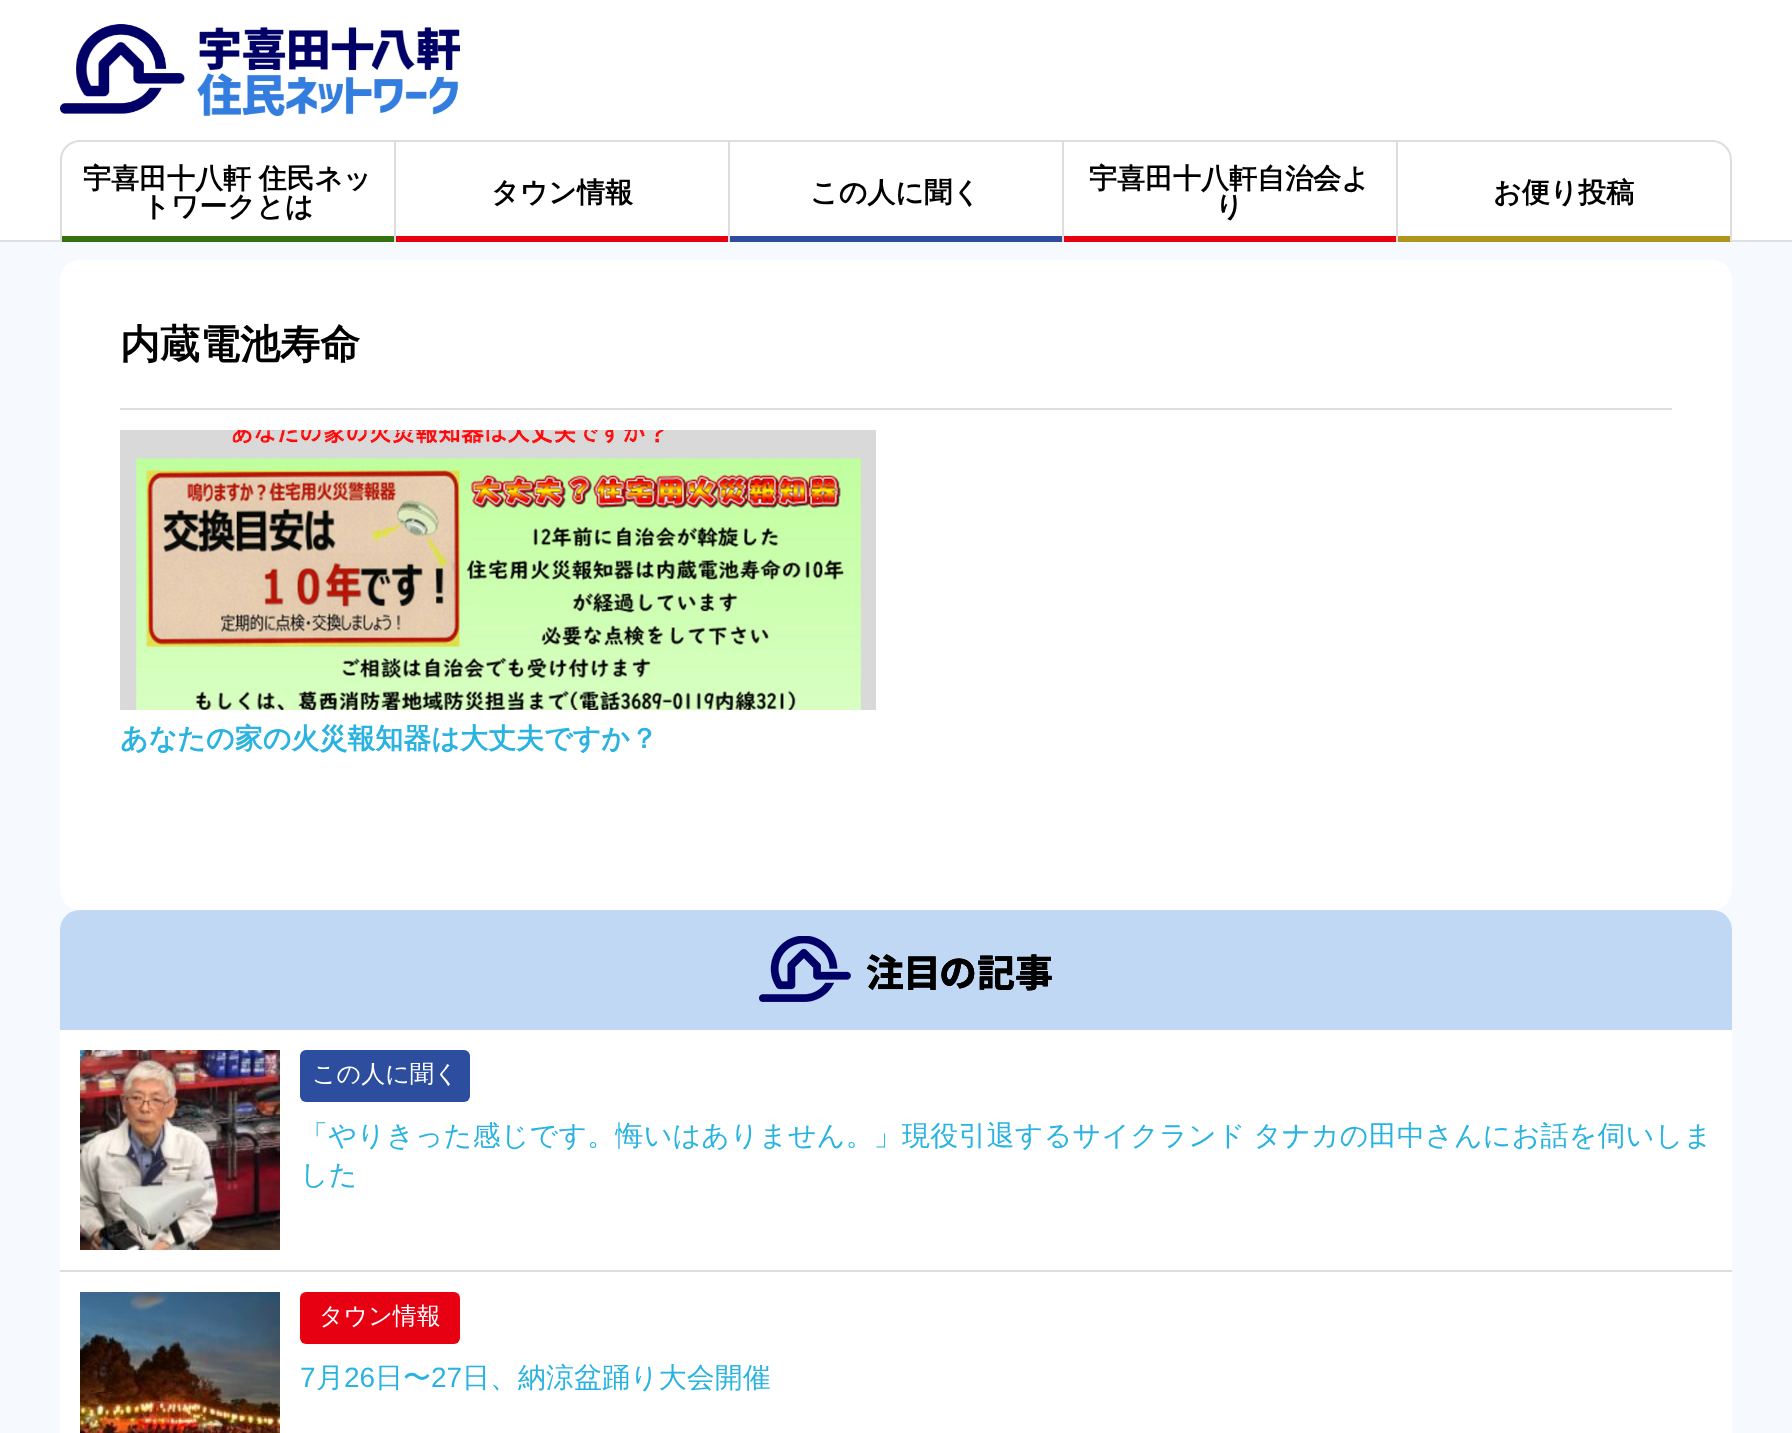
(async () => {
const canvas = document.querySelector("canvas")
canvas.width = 1792
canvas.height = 1433
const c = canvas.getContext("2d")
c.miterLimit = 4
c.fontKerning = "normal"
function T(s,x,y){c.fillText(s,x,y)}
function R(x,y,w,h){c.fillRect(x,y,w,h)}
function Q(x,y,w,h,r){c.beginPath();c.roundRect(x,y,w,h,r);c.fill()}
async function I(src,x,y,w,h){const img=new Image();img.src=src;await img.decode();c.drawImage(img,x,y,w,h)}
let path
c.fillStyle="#f6f9fe"
R(0,0,1792,1433)
c.fillStyle="#dde0e5"
R(0,240,1792,2)
c.fillStyle="#fff"
R(0,0,1792,240)
await I("1.png",60,24,400,93)
c.fillStyle="#ddd"
path = new Path2D("M80 140h1632c11 0 20 9 20 20v82h-1672v-82c0-11 9-20 20-20zm0 2h1632c10 0 18 8 18 18v82h-1668v-82c0-10 8-18 18-18z")
c.fill(path,"evenodd")
R(394,142,2,100)
c.wordSpacing="-1px"
c.font="bold 28px WenQuanYi Zen Hei"
c.fillStyle="#000"
T("宇喜田十八軒 住民ネッ",83,188)
c.wordSpacing="0px"
T("トワークとは",142,216)
c.fillStyle="#34720f"
R(62,236,332,6)
c.fillStyle="#ddd"
R(728,142,2,100)
c.fillStyle="#000"
T("タウン情報",491,202)
c.fillStyle="#e60012"
R(396,236,332,6)
c.fillStyle="#ddd"
R(1062,142,2,100)
c.fillStyle="#000"
T("この人に聞く",810,202)
c.fillStyle="#2d4d9e"
R(730,236,332,6)
c.fillStyle="#ddd"
R(1396,142,2,100)
c.fillStyle="#000"
T("宇喜田十八軒自治会よ",1089,188)
T("り",1215,216)
c.fillStyle="#e60012"
R(1064,236,332,6)
c.fillStyle="#000"
T("お便り投稿",1493,202)
c.fillStyle="#af951e"
R(1398,236,332,6)
c.fillStyle="#fff"
Q(60,260,1672,650,20)
c.fillStyle="#ddd"
R(120,408,1552,2)
c.font="bold 40px WenQuanYi Zen Hei"
c.fillStyle="#000"
T("内蔵電池寿命",120,358)
await I("2.png",120,430,756,280)
c.font="bold 28px WenQuanYi Zen Hei"
c.fillStyle="#2ab3e0"
T("あなたの家の火災報知器は大丈夫ですか？",120,748)
c.fillStyle="#fff"
Q(60,910,1672,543,20)
c.fillStyle="#337dde4d"
c.beginPath()
c.roundRect(60,910,1672,120,[20,20,0,0])
c.fill()
await I("3.png",759,936,293,66)
c.fillStyle="#ddd"
R(60,1270,1672,2)
await I("4.png",80,1050,200,200)
c.fillStyle="#2d4d9e"
Q(300,1050,170,52,6)
c.font="500 24px WenQuanYi Zen Hei"
c.fillStyle="#fff"
T("この人に聞く",312,1082)
c.letterSpacing="0.2px"
c.wordSpacing="-1px"
c.font="500 28px WenQuanYi Zen Hei"
c.fillStyle="#2ab3e0"
T("「やりきった感じです。悔いはありません。」現役引退するサイクランド タナカの田中さんにお話を伺いしま",300,1145)
c.letterSpacing="0px"
c.wordSpacing="0px"
T("した",300,1184)
await I("5.png",80,1292,200,141)
c.fillStyle="#e60012"
Q(300,1292,160,52,6)
c.font="500 24px WenQuanYi Zen Hei"
c.fillStyle="#fff"
T("タウン情報",319,1324)
c.font="28px Liberation Sans"
c.fillStyle="#2ab3e0"
T("7",300,1387)
c.font="500 28px WenQuanYi Zen Hei"
T("月",316,1387)
c.font="28px Liberation Sans"
T("26",344,1387)
c.font="500 28px WenQuanYi Zen Hei"
T("日〜",375,1387)
c.font="28px Liberation Sans"
T("27",431,1387)
c.font="500 28px WenQuanYi Zen Hei"
T("日、納涼盆踊り大会開催",462,1387)
})()
